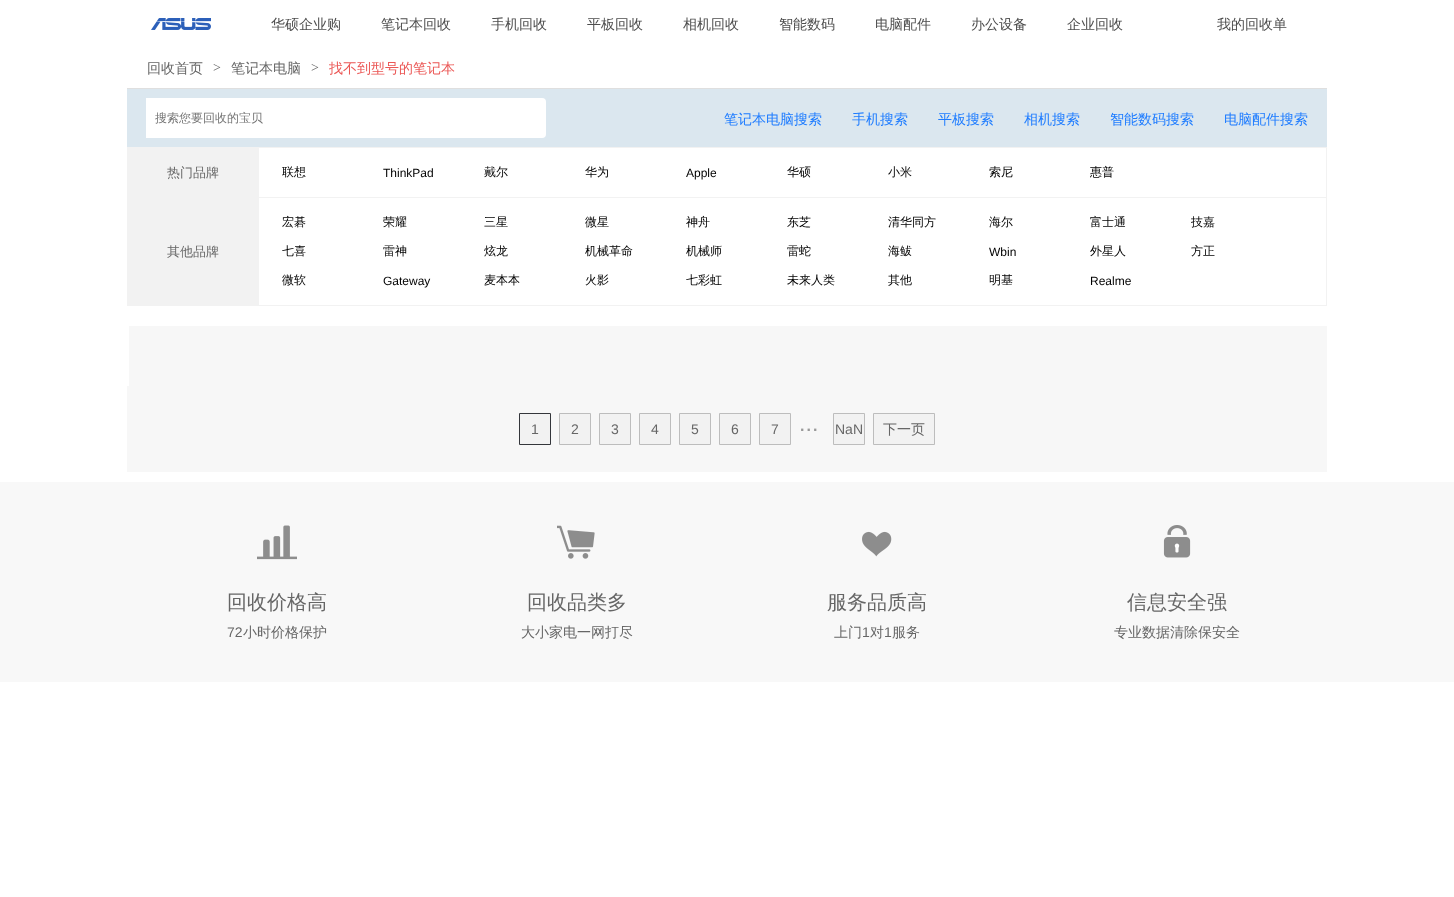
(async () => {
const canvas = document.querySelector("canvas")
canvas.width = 1454
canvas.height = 897
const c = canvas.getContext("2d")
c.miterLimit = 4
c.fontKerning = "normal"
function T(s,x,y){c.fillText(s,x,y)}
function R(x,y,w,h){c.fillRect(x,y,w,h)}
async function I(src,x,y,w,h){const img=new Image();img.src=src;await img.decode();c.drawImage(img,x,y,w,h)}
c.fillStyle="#fff"
R(0,0,1454,897)
await I("1.png",151,18,60,12)
c.font="500 14px WenQuanYi Zen Hei"
c.fillStyle="#4d4d4d"
T("华硕企业购",271,29)
T("笔记本回收",381,29)
T("手机回收",491,29)
T("平板回收",587,29)
T("相机回收",683,29)
T("智能数码",779,29)
T("电脑配件",875,29)
T("办公设备",971,29)
T("企业回收",1067,29)
T("我的回收单",1217,29)
c.fillStyle="#666"
T("回收首页",147,73)
c.font="14px Liberation Serif"
T(">",213,72)
c.font="500 14px WenQuanYi Zen Hei"
T("笔记本电脑",231,73)
c.font="14px Liberation Serif"
T(">",311,72)
c.font="500 14px WenQuanYi Zen Hei"
c.fillStyle="#eb5755"
T("找不到型号的笔记本",329,73)
c.fillStyle="#dfdfdf"
R(127,88,1200,1)
c.fillStyle="#dbe7ef"
R(127,89,1200,58)
c.fillStyle="#fff"
c.beginPath()
c.roundRect(146,98,400,40,[0,4,4,0])
c.fill()
c.font="500 12px WenQuanYi Zen Hei"
c.fillStyle="#757575"
T("搜索您要回收的宝贝",155,122)
c.font="500 14px WenQuanYi Zen Hei"
c.fillStyle="#1e7cff"
T("笔记本电脑搜索",724,124)
T("手机搜索",852,124)
T("平板搜索",938,124)
T("相机搜索",1024,124)
T("智能数码搜索",1110,124)
T("电脑配件搜索",1224,124)
c.fillStyle="#f2f2f2"
R(128,148,131,157)
R(127,147,1200,1)
R(258,197,1069,1)
R(1326,197,1,109)
R(127,305,1200,1)
R(127,197,1,109)
R(127,147,1,51)
c.font="500 13px WenQuanYi Zen Hei"
c.fillStyle="#666"
T("热门品牌",167,177)
c.fillStyle="#f2f2f2"
R(1326,147,1,51)
c.font="500 12px WenQuanYi Zen Hei"
c.fillStyle="#000"
T("联想",282,176)
c.font="12px Liberation Sans"
T("ThinkPad",383,177)
c.font="500 12px WenQuanYi Zen Hei"
T("戴尔",484,176)
T("华为",585,176)
c.font="12px Liberation Sans"
T("Apple",686,177)
c.font="500 12px WenQuanYi Zen Hei"
T("华硕",787,176)
T("小米",888,176)
T("索尼",989,176)
T("惠普",1090,176)
c.font="500 13px WenQuanYi Zen Hei"
c.fillStyle="#666"
T("其他品牌",167,256)
c.font="500 12px WenQuanYi Zen Hei"
c.fillStyle="#000"
T("宏碁",282,226)
T("荣耀",383,226)
T("三星",484,226)
T("微星",585,226)
T("神舟",686,226)
T("东芝",787,226)
T("清华同方",888,226)
T("海尔",989,226)
T("富士通",1090,226)
T("技嘉",1191,226)
T("七喜",282,255)
T("雷神",383,255)
T("炫龙",484,255)
T("机械革命",585,255)
T("机械师",686,255)
T("雷蛇",787,255)
T("海鲅",888,255)
c.font="12px Liberation Sans"
T("Wbin",989,256)
c.font="500 12px WenQuanYi Zen Hei"
T("外星人",1090,255)
T("方正",1191,255)
T("微软",282,284)
c.font="12px Liberation Sans"
T("Gateway",383,285)
c.font="500 12px WenQuanYi Zen Hei"
T("麦本本",484,284)
T("火影",585,284)
T("七彩虹",686,284)
T("未来人类",787,284)
T("其他",888,284)
T("明基",989,284)
c.font="12px Liberation Sans"
T("Realme",1090,285)
c.fillStyle="#f7f7f7"
R(129,326,1198,60)
R(127,386,1200,86)
c.fillStyle="#f2f2f2"
c.beginPath()
c.rect(519.5,413.5,31,31)
c.fill()
c.strokeStyle="#34363b"
c.stroke()
c.font="14px Liberation Sans"
c.fillStyle="#666"
T("1",531,434)
c.fillStyle="#f2f2f2"
c.beginPath()
c.rect(559.5,413.5,31,31)
c.fill()
c.strokeStyle="#bdbdbd"
c.stroke()
c.fillStyle="#666"
T("2",571,434)
c.fillStyle="#f2f2f2"
c.beginPath()
c.rect(599.5,413.5,31,31)
c.fill()
c.stroke()
c.fillStyle="#666"
T("3",611,434)
c.fillStyle="#f2f2f2"
c.beginPath()
c.rect(639.5,413.5,31,31)
c.fill()
c.stroke()
c.fillStyle="#666"
T("4",651,434)
c.fillStyle="#f2f2f2"
c.beginPath()
c.rect(679.5,413.5,31,31)
c.fill()
c.stroke()
c.fillStyle="#666"
T("5",691,434)
c.fillStyle="#f2f2f2"
c.beginPath()
c.rect(719.5,413.5,31,31)
c.fill()
c.stroke()
c.fillStyle="#666"
T("6",731,434)
c.fillStyle="#f2f2f2"
c.beginPath()
c.rect(759.5,413.5,31,31)
c.fill()
c.stroke()
c.fillStyle="#666"
T("7",771,434)
c.letterSpacing="2px"
c.font="bold 16px Liberation Sans"
c.fillStyle="#999"
T("...",800,431)
c.fillStyle="#f2f2f2"
c.beginPath()
c.rect(833.5,413.5,31,31)
c.fill()
c.stroke()
c.letterSpacing="0px"
c.font="14px Liberation Sans"
c.fillStyle="#666"
T("NaN",835,434)
c.fillStyle="#f2f2f2"
c.beginPath()
c.rect(873.5,413.5,61,31)
c.fill()
c.stroke()
c.font="500 14px WenQuanYi Zen Hei"
c.fillStyle="#666"
T("下一页",883,434)
c.fillStyle="#f8f8f8"
R(0,482,1454,200)
await I("2.png",257,525,40,35)
c.font="500 20px WenQuanYi Zen Hei"
c.fillStyle="#666"
T("回收价格高",227,609)
c.font="14px Liberation Sans"
T("72",227,637)
c.font="500 14px WenQuanYi Zen Hei"
T("小时价格保护",243,637)
await I("3.png",557,525,38,34)
c.font="500 20px WenQuanYi Zen Hei"
T("回收品类多",527,609)
c.font="500 14px WenQuanYi Zen Hei"
T("大小家电一网打尽",521,637)
await I("4.png",862,531,30,26)
c.font="500 20px WenQuanYi Zen Hei"
T("服务品质高",827,609)
c.font="500 14px WenQuanYi Zen Hei"
T("上门",834,637)
c.font="14px Liberation Sans"
T("1",862,637)
c.font="500 14px WenQuanYi Zen Hei"
T("对",870,637)
c.font="14px Liberation Sans"
T("1",884,637)
c.font="500 14px WenQuanYi Zen Hei"
T("服务",892,637)
await I("5.png",1163,525,28,33)
c.font="500 20px WenQuanYi Zen Hei"
T("信息安全强",1127,609)
c.font="500 14px WenQuanYi Zen Hei"
T("专业数据清除保安全",1114,637)
})()
